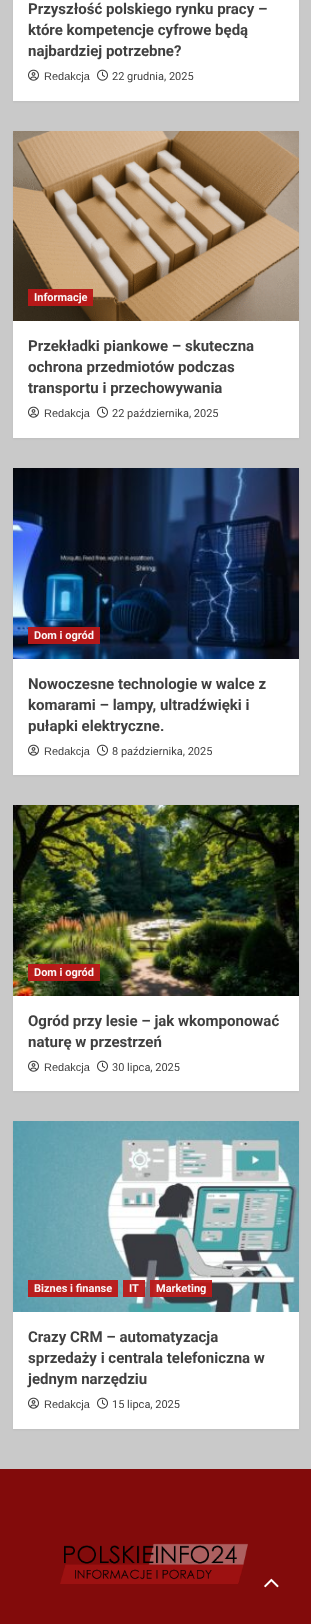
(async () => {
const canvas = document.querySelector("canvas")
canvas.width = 311
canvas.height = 1624
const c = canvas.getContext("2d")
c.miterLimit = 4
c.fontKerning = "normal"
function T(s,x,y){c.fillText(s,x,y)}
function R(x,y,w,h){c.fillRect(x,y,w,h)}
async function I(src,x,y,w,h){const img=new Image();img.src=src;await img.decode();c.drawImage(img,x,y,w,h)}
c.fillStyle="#c9c9c9"
R(0,0,311,1624)
c.fillStyle="#0000000d"
c.filter="blur(1px)"
c.beginPath()
c.rect(13,-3,286,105)
c.fill()
c.filter="none"
c.fillStyle="#fff"
R(13,0,286,101)
c.font="bold 15px Roboto"
c.fillStyle="#404040"
T("Przyszłość polskiego rynku pracy –",28,14)
T("które kompetencje cyfrowe będą",28,35)
T("najbardziej potrzebne?",28,56)
await I("1.png",28,69,11,12)
c.font="11px Liberation Sans"
T("Redakcja",44,80)
await I("2.png",97,69,11,12)
c.font="11px Roboto"
T("22 grudnia, 2025",112,80)
c.fillStyle="#0000000d"
c.filter="blur(1px)"
c.beginPath()
c.rect(13,132,286,307)
c.fill()
c.filter="none"
c.fillStyle="#fff"
R(13,321,286,117)
await I("3.png",13,131,286,190)
c.fillStyle="#bb1919f5"
R(28,289,65,17)
c.font="bold 11px Roboto"
c.fillStyle="#fcf6f6"
T("Informacje",34,301)
c.font="bold 15px Roboto"
c.fillStyle="#404040"
T("Przekładki piankowe – skuteczna",28,351)
T("ochrona przedmiotów podczas",28,372)
T("transportu i przechowywania",28,393)
await I("1.png",28,406,11,12)
c.font="11px Liberation Sans"
T("Redakcja",44,417)
await I("2.png",97,406,11,12)
c.font="11px Roboto"
T("22 października, 2025",112,417)
c.fillStyle="#0000000d"
c.filter="blur(1px)"
c.beginPath()
c.rect(13,469,286,307)
c.fill()
c.filter="none"
c.fillStyle="#fff"
R(13,659,286,116)
await I("4.png",13,468,286,191)
c.fillStyle="#bb1919f5"
R(28,627,72,17)
c.font="bold 11px Roboto"
c.fillStyle="#fcf6f6"
T("Dom i ogród",34,639)
c.font="bold 15px Roboto"
c.fillStyle="#404040"
T("Nowoczesne technologie w walce z",28,689)
T("komarami – lampy, ultradźwięki i",28,710)
T("pułapki elektryczne.",28,731)
await I("1.png",28,744,11,12)
c.font="11px Liberation Sans"
T("Redakcja",44,755)
await I("2.png",97,744,11,12)
c.font="11px Roboto"
T("8 października, 2025",112,755)
c.fillStyle="#0000000d"
c.filter="blur(1px)"
c.beginPath()
c.rect(13,806,286,286)
c.fill()
c.filter="none"
c.fillStyle="#fff"
R(13,996,286,95)
await I("5.png",13,805,286,191)
c.fillStyle="#bb1919f5"
R(28,964,72,17)
c.font="bold 11px Roboto"
c.fillStyle="#fcf6f6"
T("Dom i ogród",34,976)
c.font="bold 15px Roboto"
c.fillStyle="#404040"
T("Ogród przy lesie – jak wkomponować",28,1026)
T("naturę w przestrzeń",28,1047)
await I("1.png",28,1060,11,12)
c.font="11px Liberation Sans"
T("Redakcja",44,1071)
await I("2.png",97,1060,11,12)
c.font="11px Roboto"
T("30 lipca, 2025",112,1071)
c.fillStyle="#0000000d"
c.filter="blur(1px)"
c.beginPath()
c.rect(13,1122,286,308)
c.fill()
c.filter="none"
c.fillStyle="#fff"
R(13,1312,286,117)
await I("6.png",13,1121,286,191)
c.fillStyle="#bb1919f5"
R(28,1280,90,17)
c.font="bold 11px Roboto"
c.fillStyle="#fcf6f6"
T("Biznes i finanse",34,1292)
c.fillStyle="#bb1919f5"
R(123,1280,22,17)
c.fillStyle="#fcf6f6"
T("IT",129,1292)
c.fillStyle="#bb1919f5"
R(150,1280,62,17)
c.fillStyle="#fcf6f6"
T("Marketing",156,1292)
c.font="bold 15px Roboto"
c.fillStyle="#404040"
T("Crazy CRM – automatyzacja",28,1342)
T("sprzedaży i centrala telefoniczna w",28,1363)
T("jednym narzędziu",28,1384)
await I("1.png",28,1397,11,12)
c.font="11px Liberation Sans"
T("Redakcja",44,1408)
await I("2.png",97,1397,11,12)
c.font="11px Roboto"
T("15 lipca, 2025",112,1408)
c.fillStyle="#820b0b"
R(0,1469,311,155)
await I("7.png",60,1543,188,41)
await I("8.png",264,1578,15,10)
})()
